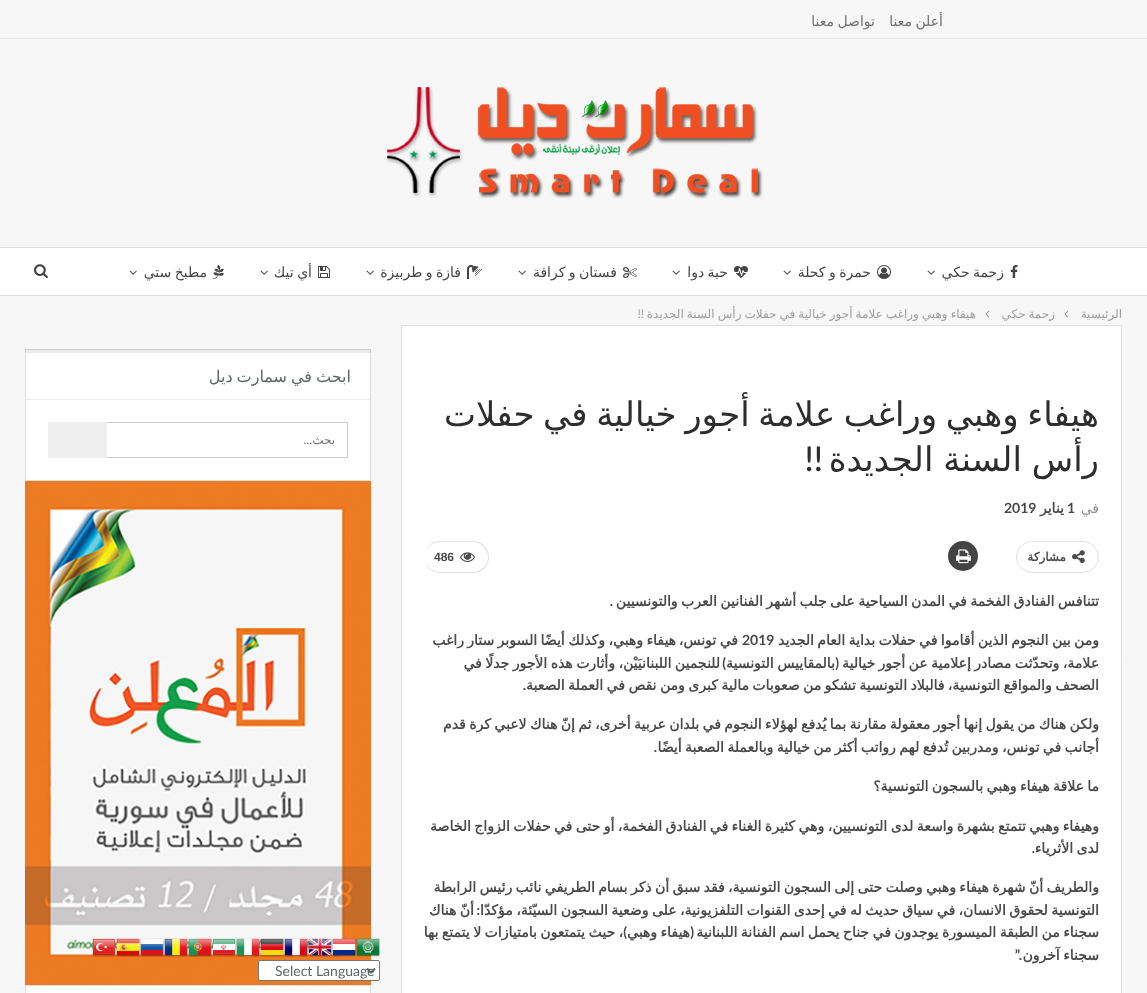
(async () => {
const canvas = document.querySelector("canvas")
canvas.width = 1147
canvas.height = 993
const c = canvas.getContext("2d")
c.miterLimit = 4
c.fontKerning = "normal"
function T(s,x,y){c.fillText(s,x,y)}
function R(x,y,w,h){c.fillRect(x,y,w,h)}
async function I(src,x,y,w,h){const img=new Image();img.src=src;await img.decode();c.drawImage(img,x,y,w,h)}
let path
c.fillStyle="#f7f7f7"
R(0,0,1147,993)
c.fillStyle="#e6e6e6"
R(0,38,1147,1)
c.wordSpacing="-1px"
c.direction="rtl"
c.font="14px DejaVu Sans"
c.fillStyle="#707070"
T("أعلن معنا",943,26)
T("تواصل معنا",875,26)
await I("1.png",386,87,377,112)
c.fillStyle="#fff"
R(0,248,1147,47)
c.fillStyle="#dedede"
R(0,247,1147,1)
R(0,295,1147,1)
await I("2.png",1010,265,8,13)
c.fillStyle="#444"
T("زحمة حكي",1004,277)
await I("3.png",927,270,8,5)
await I("4.png",877,265,14,14)
T("حمرة و كحلة",871,277)
await I("3.png",783,270,8,5)
await I("5.png",734,266,14,12)
T("حبة دوا",728,277)
await I("3.png",672,270,8,5)
await I("6.png",623,267,14,11)
T("فستان و كرافة",617,277)
await I("3.png",518,270,8,5)
await I("7.png",467,265,15,14)
T("فازة و طربيزة",461,277)
await I("3.png",366,270,8,5)
await I("8.png",318,266,12,12)
T("أي تيك",312,277)
await I("3.png",260,270,8,5)
await I("9.png",213,265,11,14)
T("مطبخ ستي",207,277)
await I("3.png",129,270,8,5)
await I("10.png",34,264,14,15)
c.wordSpacing="0px"
c.font="12px DejaVu Sans"
c.fillStyle="#9e9e9e"
T("الرئيسية",1122,318)
await I("11.png",1064,310,5,8)
c.wordSpacing="-1px"
T("زحمة حكي",1055,318)
await I("11.png",985,310,5,8)
c.wordSpacing="-0.75px"
T("هيفاء وهبي وراغب علامة أجور خيالية في حفلات رأس السنة الجديدة",976,318)
c.wordSpacing="0px"
c.font="12px Lato"
T("!!",644,318)
c.fillStyle="#fff"
c.beginPath()
c.rect(401.5,325.5,720,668)
c.fill()
c.strokeStyle="#dedede"
c.stroke()
c.save()
c.beginPath()
c.rect(424,369,675,152)
c.clip()
c.wordSpacing="-2.25px"
c.font="34px DejaVu Sans"
c.fillStyle="#2d2d2d"
T("هيفاء وهبي وراغب علامة أجور خيالية في حفلات",1099,426)
c.wordSpacing="-1px"
T("رأس السنة الجديدة",1099,471)
c.restore()
c.font="500 34px Lato"
c.fillStyle="#2d2d2d"
T("!!",823,471)
c.font="14px DejaVu Sans"
c.fillStyle="#8f8f8f"
T("في",1099,513)
c.direction="ltr"
c.font="bold 14px Lato"
c.fillStyle="#4a4a4a"
T("1",1067,513)
c.direction="rtl"
c.font="bold 14px DejaVu Sans"
T("يناير",1064,513)
c.direction="ltr"
c.font="bold 14px Lato"
T("2019",1004,513)
c.beginPath()
c.roundRect(1016.5,541.5,82,31,15.5)
c.strokeStyle="#e2e2e2"
c.stroke()
await I("12.png",1072,550,13,14)
c.direction="rtl"
c.font="bold 12px DejaVu Sans"
T("مشاركة",1066,561)
c.fillStyle="#444"
c.beginPath()
c.arc(963,556,15,0,7)
c.fill()
await I("13.png",956,549,15,15)
c.fillStyle="#e2e2e2"
path = new Path2D("M440 541h33c9 0 16 7 16 16c0 9-7 16-16 16h-33c-9 0-16-7-16-16c0-9 7-16 16-16zm0 1h33c8 0 15 7 15 15c0 8-7 15-15 15h-33c-9 0-16-7-16-15c0-8 7-15 16-15z")
c.fill(path,"evenodd")
await I("14.png",460,552,15,10)
c.direction="ltr"
c.font="bold 12px Liberation Sans"
c.fillStyle="#4a4a4a"
T("486",434,561)
c.wordSpacing="-1px"
c.direction="rtl"
c.font="bold 14px DejaVu Sans"
T("تتنافس الفنادق الفخمة في المدن السياحية على جلب أشهر الفنانين العرب والتونسيين",1099,606)
c.wordSpacing="0px"
c.font="bold 14px Lato"
T(".",613,606)
c.wordSpacing="-1.05px"
c.font="bold 14px DejaVu Sans"
T("ومن بين النجوم الذين أقاموا في حفلات بداية العام الجديد",1099,645)
c.wordSpacing="0px"
c.direction="ltr"
c.font="bold 14px Lato"
T("2019",742,645)
c.wordSpacing="-1px"
c.direction="rtl"
c.font="bold 14px DejaVu Sans"
T("هيفاء وهبي، وكذلك أيضًا السوبر ستار",676,645)
T("في تونس،",738,645)
c.wordSpacing="0px"
T("راغب",464,645)
c.wordSpacing="-1px"
T("علامة، وتحدّثت مصادر إعلامية عن أجور خيالية",1099,668)
T("للنجمين اللبنانيَيْن، وأثارت هذه الأجور جدلًا في",720,668)
c.wordSpacing="0px"
c.font="bold 14px Lato"
T("(",839,668)
c.wordSpacing="-1px"
c.font="bold 14px DejaVu Sans"
T("بالمقاييس التونسية",835,668)
c.wordSpacing="0px"
c.font="bold 14px Lato"
T(")",726,668)
c.wordSpacing="-1.05px"
c.font="bold 14px DejaVu Sans"
T("الصحف والمواقع التونسية، فالبلاد التونسية تشكو من صعوبات مالية كبرى ومن نقص في العملة الصعبة",1099,690)
c.wordSpacing="0px"
c.font="bold 14px Lato"
T(".",526,690)
c.wordSpacing="-1.05px"
c.font="bold 14px DejaVu Sans"
T("ولكن هناك من يقول إنها أجور معقولة مقارنة بما يُدفع لهؤلاء النجوم في بلدان عربية أخرى، ثم إنّ هناك لاعبي كرة قدم",1099,729)
T("أجانب في تونس، ومدربين تُدفع لهم رواتب أكثر من خيالية وبالعملة الصعبة أيضًا",1099,752)
c.wordSpacing="0px"
c.font="bold 14px Lato"
T(".",657,752)
c.wordSpacing="-1.05px"
c.font="bold 14px DejaVu Sans"
T("ما علاقة هيفاء وهبي بالسجون التونسية؟",1099,791)
T("وهيفاء وهبي تتمتع بشهرة واسعة لدى التونسيين، وهي كثيرة الغناء في الفنادق الفخمة، أو حتى في حفلات الزواج الخاصة",1099,831)
T("لدى الأثرياء",1099,853)
c.wordSpacing="0px"
c.font="bold 14px Lato"
T(".",1035,853)
c.wordSpacing="-1.05px"
c.font="bold 14px DejaVu Sans"
T("والطريف أنّ شهرة هيفاء وهبي وصلت حتى إلى السجون التونسية، فقد سبق أن ذكر بسام الطريفي نائب رئيس الرابطة",1099,892)
c.wordSpacing="-1px"
T("التونسية لحقوق الانسان، في سياق حديث له في إحدى القنوات التلفزيونية، على وضعية السجون السيّئة، مؤكدّا",1099,915)
c.wordSpacing="0px"
c.font="bold 14px Lato"
T(":",480,915)
c.wordSpacing="-1px"
c.font="bold 14px DejaVu Sans"
T("أنّ هناك",474,915)
T("، حيث يتمتعون بامتيازات لا يتمتع بها",623,937)
T("سجناء من الطبقة الميسورة يوجدون في جناح يحمل اسم الفنانة اللبنانية",1099,937)
c.wordSpacing="0px"
c.font="bold 14px Lato"
T("(",694,937)
c.wordSpacing="-1px"
c.font="bold 14px DejaVu Sans"
T("هيفاء وهبي",690,937)
c.wordSpacing="0px"
c.font="bold 14px Lato"
T(")",627,937)
c.wordSpacing="-1.05px"
c.font="bold 14px DejaVu Sans"
T("سجناء آخرون",1099,960)
c.wordSpacing="0px"
c.font="bold 14px Lato"
T(".”",1022,960)
c.fillStyle="#fff"
c.beginPath()
c.rect(25.5,349.5,345,131)
c.fill()
c.strokeStyle="#dedede"
c.stroke()
c.fillStyle="#00000014"
R(25,349,346,4)
c.wordSpacing="-1px"
c.font="16px DejaVu Sans"
c.fillStyle="#5f6569"
T("ابحث في سمارت ديل",351,382)
c.fillStyle="#00000012"
R(25,399,346,1)
c.strokeStyle="#ccc"
c.strokeRect(48.5,422.5,299,35)
c.wordSpacing="0px"
c.font="12px DejaVu Sans"
c.fillStyle="#707070"
T("بحث",335,444)
c.font="12px Lato"
T("...",312,444)
c.fillStyle="#efefef"
R(48,422,59,36)
await I("15.png",25,481,346,504)
c.fillStyle="#fff"
c.beginPath()
c.rect(25.5,985.5,345,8)
c.fill()
c.strokeStyle="#dedede"
c.stroke()
await I("16.png",356,938,24,19)
await I("17.png",332,938,24,19)
await I("18.png",308,938,24,19)
await I("19.png",284,938,24,19)
await I("20.png",260,938,24,19)
await I("21.png",236,938,24,19)
await I("22.png",212,938,24,19)
await I("23.png",188,938,24,19)
await I("24.png",164,938,24,19)
await I("25.png",140,938,24,19)
await I("26.png",116,938,24,19)
await I("27.png",92,938,24,19)
c.beginPath()
c.roundRect(258.5,960.5,121,20,1.5)
c.fill()
c.strokeStyle="#767676"
c.stroke()
path = new Path2D("M367 968.5l4 4l4-4")
c.strokeStyle="#5f6569"
c.lineWidth=2
c.stroke(path)
c.direction="ltr"
c.font="14px Lato"
c.fillStyle="#5f6569"
T("Select Language",275,976)
})()
